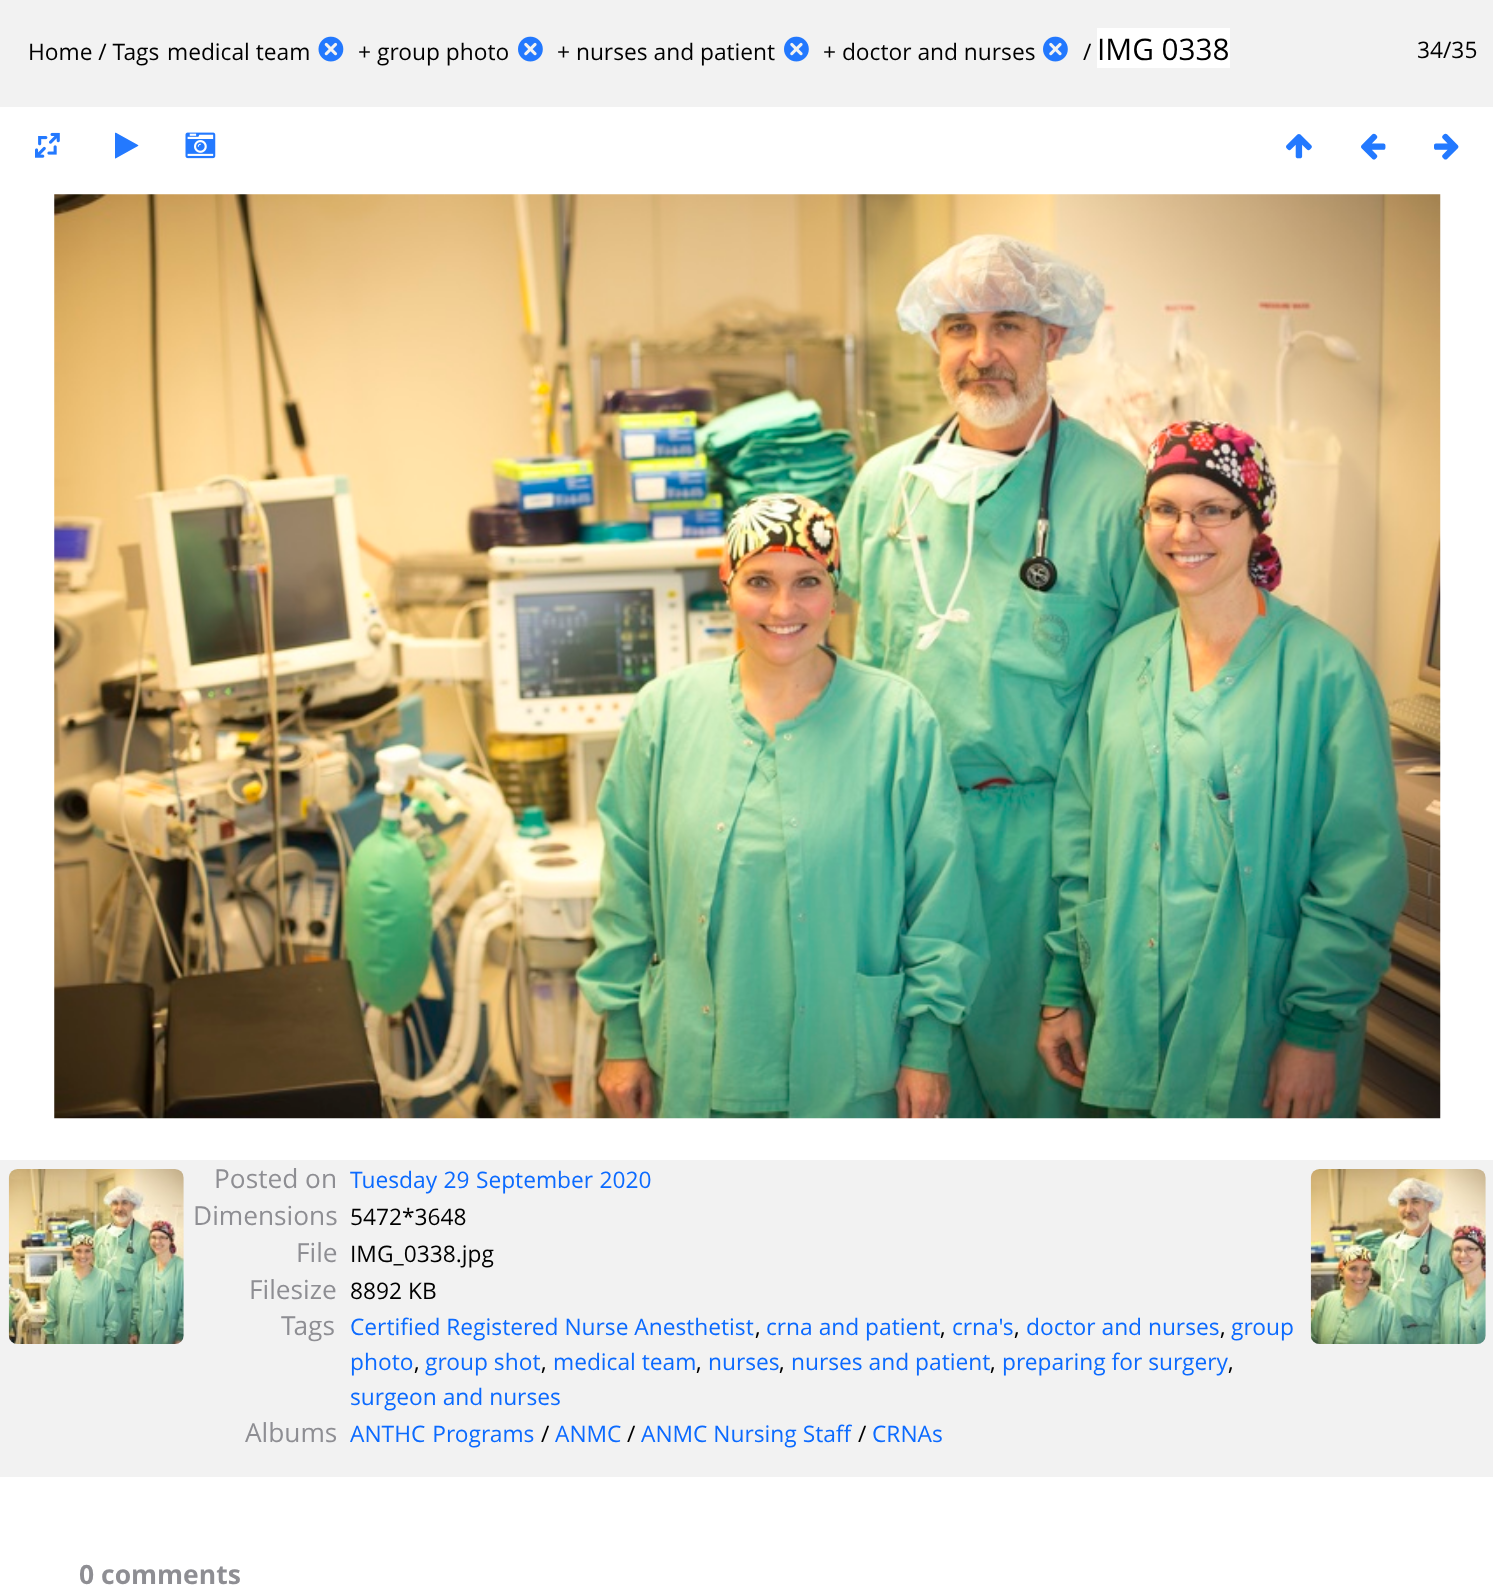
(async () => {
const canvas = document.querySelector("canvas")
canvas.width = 1493
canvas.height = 1594
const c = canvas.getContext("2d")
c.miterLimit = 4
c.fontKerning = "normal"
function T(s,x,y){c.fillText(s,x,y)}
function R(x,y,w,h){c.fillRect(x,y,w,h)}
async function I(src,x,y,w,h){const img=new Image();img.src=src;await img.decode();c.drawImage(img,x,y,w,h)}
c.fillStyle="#fff"
R(0,0,1493,1594)
c.fillStyle="#f2f2f2"
R(0,0,1493,107)
c.font="22.75px Open Sans"
c.fillStyle="#000"
T("Home / Tags",28,60)
T("medical team",167,60)
await I("1.png",318,36,26,26)
T("+ group photo",358,60)
await I("2.png",518,36,25,26)
T("+ nurses and patient",557,60)
await I("2.png",784,36,25,26)
T("+ doctor and nurses",823,60)
await I("2.png",1043,36,25,26)
T("/",1083,60)
c.fillStyle="#fff"
R(1097,28,133,40)
c.font="29.75px Open Sans"
c.fillStyle="#000"
T("IMG 0338",1097,60)
c.font="22.75px Open Sans"
T("34/35",1417,58)
await I("3.png",35,132,25,26)
c.font="29.75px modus"
c.fillStyle="#2379ff"
T("▶",115,156)
await I("4.png",185,132,31,27)
T("↑",1286,156)
T("←",1361,156)
T("→",1434,156)
await I("5.png",54,194,1387,925)
c.fillStyle="#f2f2f2"
R(0,1160,1493,317)
c.font="26.25px Open Sans"
c.fillStyle="#8e8e93"
T("Posted on",214,1188)
c.wordSpacing="0.5px"
c.font="22.75px Open Sans"
c.fillStyle="#0b6aff"
T("Tuesday 29 September 2020",350,1188)
c.wordSpacing="0px"
c.font="26.25px Open Sans"
c.fillStyle="#8e8e93"
T("Dimensions",193,1225)
c.font="22.75px Open Sans"
c.fillStyle="#000"
T("5472*3648",350,1225)
c.font="26.25px Open Sans"
c.fillStyle="#8e8e93"
T("File",296,1262)
c.font="22.75px Open Sans"
c.fillStyle="#000"
T("IMG_0338.jpg",350,1262)
c.font="26.25px Open Sans"
c.fillStyle="#8e8e93"
T("Filesize",249,1299)
c.font="22.75px Open Sans"
c.fillStyle="#000"
T("8892 KB",350,1299)
c.font="26.25px Open Sans"
c.fillStyle="#8e8e93"
T("Tags",281,1335)
c.font="22.75px Open Sans"
c.fillStyle="#0b6aff"
T("Certified Registered Nurse Anesthetist",350,1335)
c.fillStyle="#000"
T(",",755,1335)
c.fillStyle="#0b6aff"
T("crna and patient",766,1335)
c.fillStyle="#000"
T(",",940,1335)
c.fillStyle="#0b6aff"
T("crna's",952,1335)
c.fillStyle="#000"
T(",",1014,1335)
c.fillStyle="#0b6aff"
T("doctor and nurses",1026,1335)
c.fillStyle="#000"
T(",",1220,1335)
c.fillStyle="#0b6aff"
T("group",1231,1335)
T("photo",350,1370)
c.fillStyle="#000"
T(",",414,1370)
c.fillStyle="#0b6aff"
T("group shot",425,1370)
c.fillStyle="#000"
T(",",541,1370)
c.fillStyle="#0b6aff"
T("medical team",553,1370)
c.fillStyle="#000"
T(",",696,1370)
c.fillStyle="#0b6aff"
T("nurses",708,1370)
c.fillStyle="#000"
T(",",779,1370)
c.fillStyle="#0b6aff"
T("nurses and patient",791,1370)
c.fillStyle="#000"
T(",",990,1370)
c.fillStyle="#0b6aff"
T("preparing for surgery",1002,1370)
c.fillStyle="#000"
T(",",1228,1370)
c.fillStyle="#0b6aff"
T("surgeon and nurses",350,1405)
c.font="26.25px Open Sans"
c.fillStyle="#8e8e93"
T("Albums",245,1442)
c.wordSpacing="1px"
c.font="22.75px Open Sans"
c.fillStyle="#0b6aff"
T("ANTHC Programs",350,1442)
c.wordSpacing="0px"
c.fillStyle="#000"
T("/",541,1442)
c.fillStyle="#0b6aff"
T("ANMC",555,1442)
c.fillStyle="#000"
T("/",627,1442)
c.fillStyle="#0b6aff"
T("ANMC Nursing Staff",641,1442)
c.fillStyle="#000"
T("/",858,1442)
c.fillStyle="#0b6aff"
T("CRNAs",872,1442)
await I("6.png",8,1169,176,175)
await I("7.png",1310,1169,176,175)
c.font="bold 26.5px Open Sans"
c.fillStyle="#8e8e93"
T("0 comments",79,1584)
})()
